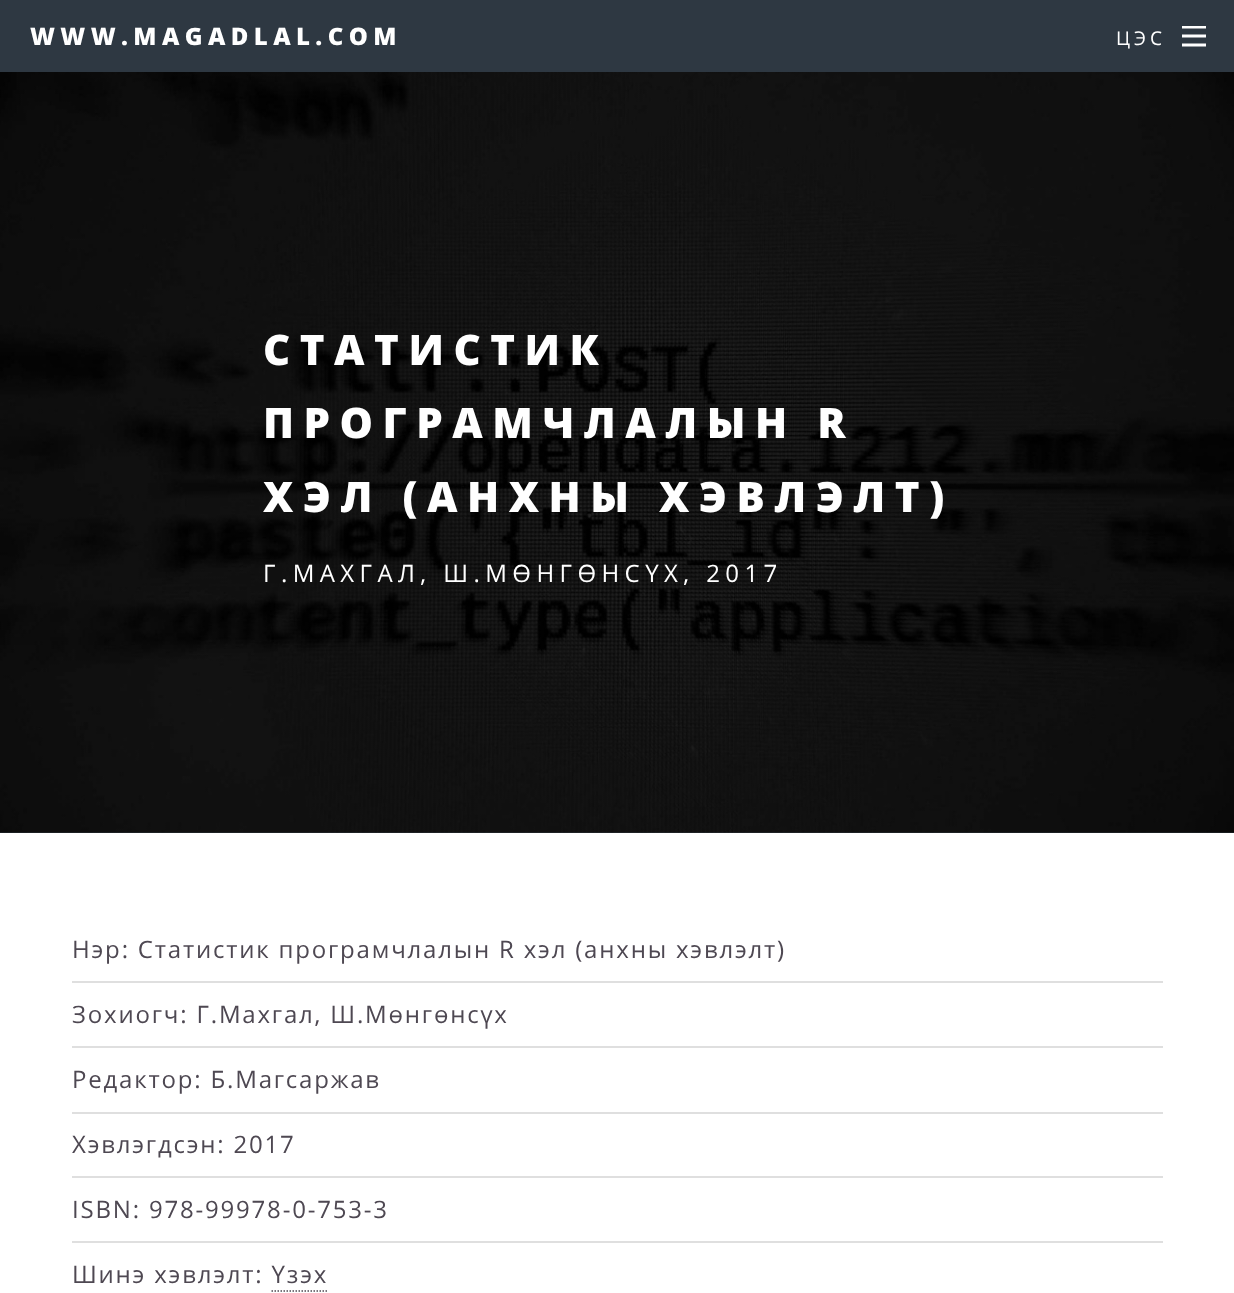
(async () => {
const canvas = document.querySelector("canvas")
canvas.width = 1234
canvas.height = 1293
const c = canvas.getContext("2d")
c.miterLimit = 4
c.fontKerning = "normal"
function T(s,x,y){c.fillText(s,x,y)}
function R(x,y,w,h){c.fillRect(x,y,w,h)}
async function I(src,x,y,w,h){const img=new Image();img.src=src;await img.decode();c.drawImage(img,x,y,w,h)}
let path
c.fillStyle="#2e3842"
R(0,0,1234,1293)
c.letterSpacing="5.4px"
c.font="800 24px Open Sans"
c.fillStyle="#fff"
T("WWW.MAGADLAL.COM",30,45)
c.letterSpacing="4px"
c.font="19px Open Sans"
T("ЦЭС",1116,45)
c.save()
c.beginPath()
c.rect(1182,26,24,24)
c.clip()
path = new Path2D("M1182 27h24")
c.strokeStyle="#fff"
c.lineWidth=3
c.stroke(path)
c.restore()
path = new Path2D("M1182 36h24m-24 9h24")
c.strokeStyle="#fff"
c.lineWidth=3
c.stroke(path)
await I("1.png",0,72,1234,761)
c.letterSpacing="9.5px"
c.font="800 42px Open Sans"
T("СТАТИСТИК",263,365)
T("ПРОГРАМЧЛАЛЫН R",263,438)
T("ХЭЛ (АНХНЫ ХЭВЛЭЛТ)",263,512)
c.letterSpacing="5.4px"
c.font="24px Open Sans"
T("Г.МАХГАЛ, Ш.МӨНГӨНСҮХ, 2017",263,582)
R(0,833,1234,460)
c.letterSpacing="1.8px"
c.fillStyle="#4e4852"
T("Нэр: Статистик програмчлалын R хэл (анхны хэвлэлт)",72,958)
c.fillStyle="#dfdfdf"
R(72,981,1091,2)
c.fillStyle="#4e4852"
T("Зохиогч: Г.Махгал, Ш.Мөнгөнсүх",72,1023)
c.fillStyle="#dfdfdf"
R(72,1046,1091,2)
c.fillStyle="#4e4852"
T("Редактор: Б.Магсаржав",72,1088)
c.fillStyle="#dfdfdf"
R(72,1112,1091,2)
c.fillStyle="#4e4852"
T("Хэвлэгдсэн: 2017",72,1153)
c.fillStyle="#dfdfdf"
R(72,1176,1091,2)
c.fillStyle="#4e4852"
T("ISBN: 978-99978-0-753-3",72,1218)
c.fillStyle="#dfdfdf"
R(72,1241,1091,2)
c.fillStyle="#4e4852"
T("Шинэ хэвлэлт: Үзэх",72,1283)
path = new Path2D("M271.5 1291h57")
c.strokeStyle="#4e4852"
c.lineWidth=1.5
c.setLineDash([1.5,1.5])
c.stroke(path)
})()
